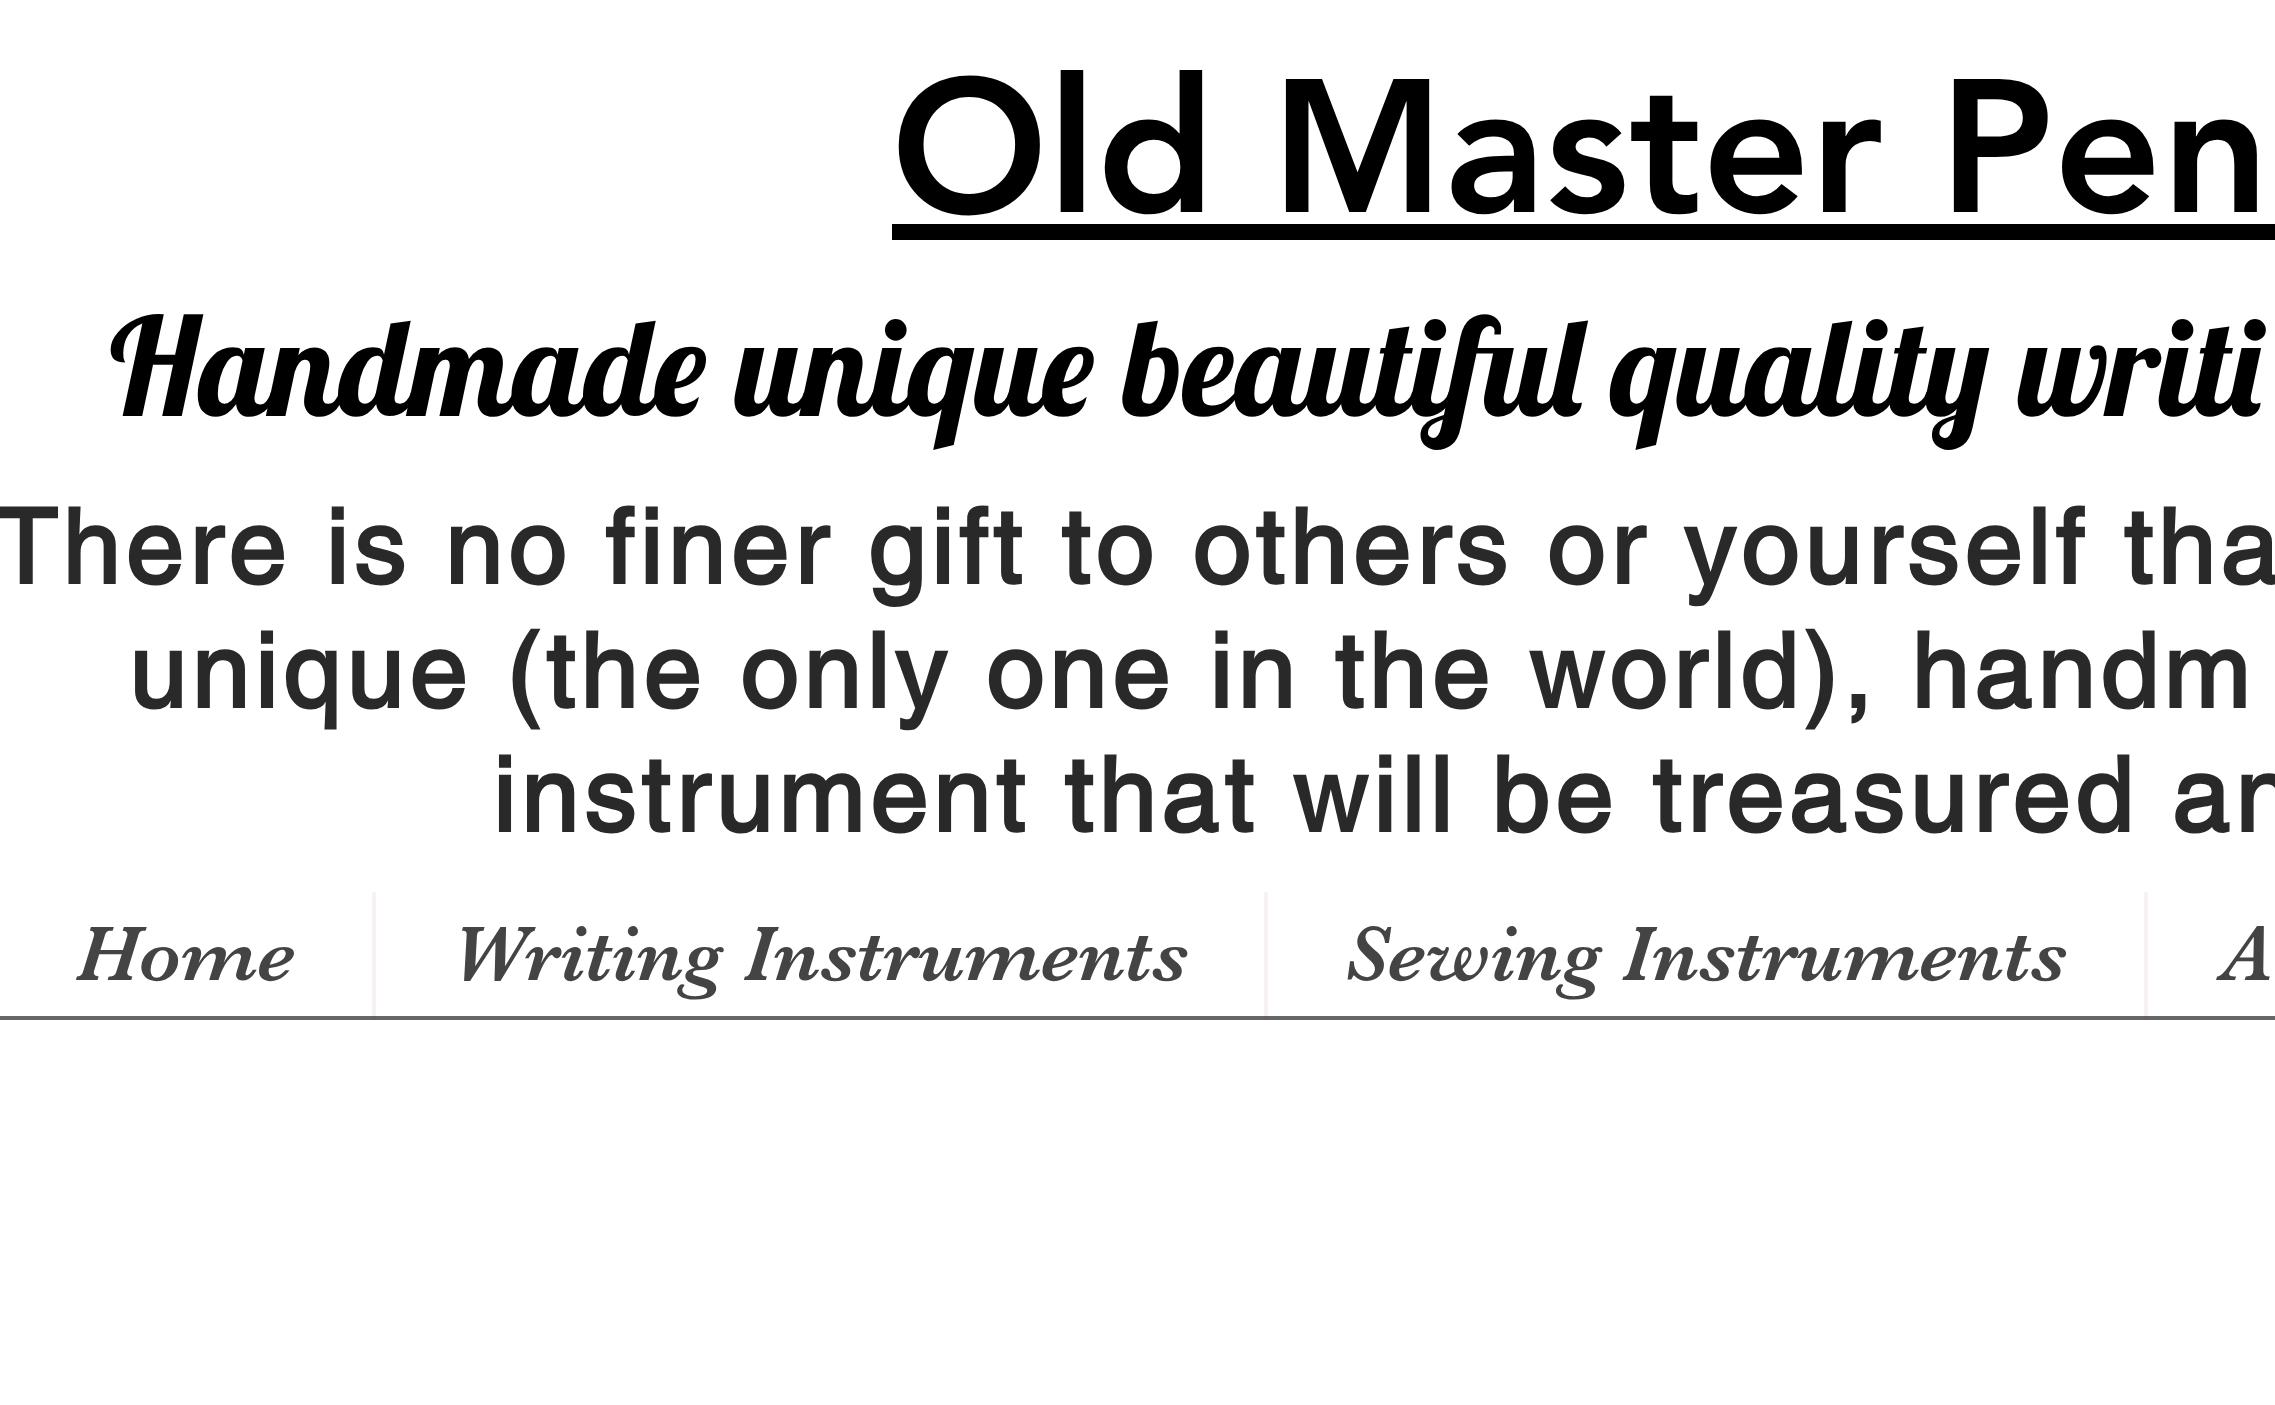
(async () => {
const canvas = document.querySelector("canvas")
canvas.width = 2275
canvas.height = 1405
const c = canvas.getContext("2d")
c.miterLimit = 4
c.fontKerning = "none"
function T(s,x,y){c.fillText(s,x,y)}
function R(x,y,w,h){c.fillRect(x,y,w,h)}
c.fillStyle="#fff"
R(0,0,2275,1405)
c.fillStyle="#f9f2f2"
R(2144,892,4,128)
R(1264,892,4,128)
R(372,892,4,128)
c.font="900 188px 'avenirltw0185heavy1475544'"
c.fillStyle="#000"
T("Old Master Pen",891,212)
R(892,224,1383,16)
c.font="136px Lobster"
T("Handmade unique beautiful quality writi",109,416)
c.letterSpacing="5.2px"
c.font="bold 104px helvetica"
c.fillStyle="#292929"
T("There is no finer gift to others or yourself tha",-7,584)
T("unique (the only one in the world), handm",128,708)
T("instrument that will be treasured an",492,832)
c.letterSpacing="0px"
c.font="80px 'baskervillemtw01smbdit'"
c.fillStyle="#444"
T("Home",76,980)
T("Writing Instruments",452,980)
T("Sewing Instruments",1344,980)
T("A",2222,980)
c.fillStyle="#666"
R(0,1016,2275,4)
c.fillStyle="#686161"
R(2144,1016,4,4)
R(1264,1016,4,4)
R(372,1016,4,4)
})()
